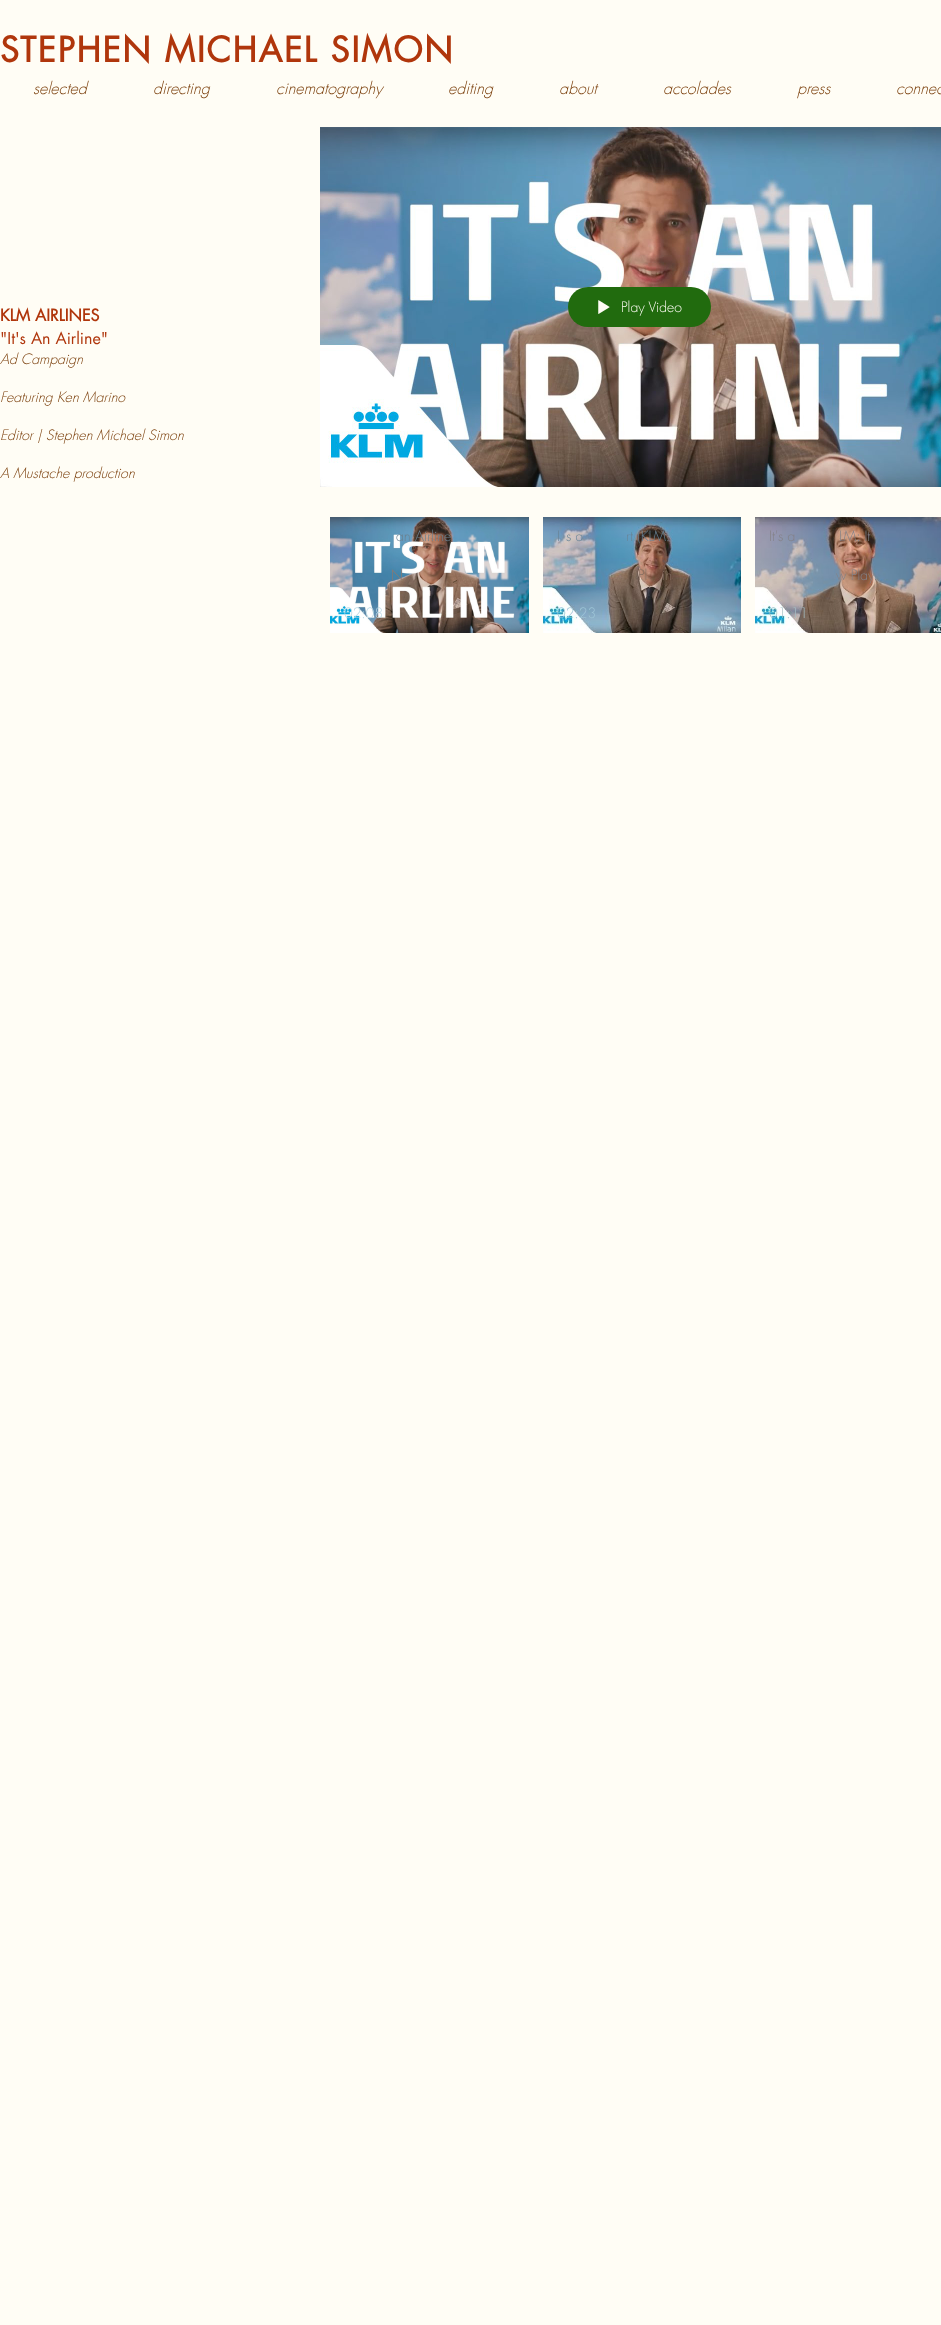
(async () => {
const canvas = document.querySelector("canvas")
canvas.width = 941
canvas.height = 2325
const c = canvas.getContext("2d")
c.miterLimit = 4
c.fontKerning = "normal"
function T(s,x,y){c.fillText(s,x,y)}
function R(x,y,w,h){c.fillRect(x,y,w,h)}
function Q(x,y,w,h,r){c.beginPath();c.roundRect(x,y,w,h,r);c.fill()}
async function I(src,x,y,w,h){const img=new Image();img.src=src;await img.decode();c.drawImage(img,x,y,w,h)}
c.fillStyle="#fffdf5"
R(0,0,941,2325)
c.letterSpacing="1.7px"
c.font="bold 34px futura"
c.fillStyle="#b0360c"
T("STEPHEN MICHAEL SIMON",0,62)
c.letterSpacing="0px"
c.font="italic 300 16px futura"
c.fillStyle="#7a3e0a"
T("selected",33,94)
T("directing",153,94)
T("cinematography",276,94)
T("editing",448,94)
T("about",559,94)
T("accolades",663,94)
T("press",797,94)
T("connec",896,94)
c.font="bold 16px futura"
c.fillStyle="#b0360c"
T("KLM AIRLINES",0,321)
c.font="16px futura"
T("\"It's An Airline\"",0,344)
c.font="italic 300 14px futura"
c.fillStyle="#7a3e0a"
T("Ad Campaign",0,364)
T("F",0,402)
T("eaturing Ken Marino",6,402)
T("Editor | Stephen Michael Simon",0,440)
T("A Mustache production",0,478)
await I("1.png",320,127,621,360)
c.fillStyle="#216b0e"
Q(568,287,143,40,20)
await I("2.png",598,300,12,14)
c.font="300 14px futura"
c.fillStyle="#fffdf5"
T("Play Video",621,312)
await I("3.png",330,517,199,116)
c.fillStyle="#6b808f"
T("an Airline",396,541)
c.fillStyle="#8b7971"
T("N",391,580)
c.fillStyle="#b9d8e4"
T("02:08",344,618)
await I("4.png",543,517,198,9)
await I("5.png",543,526,198,107)
c.fillStyle="#688497"
T("I",557,541)
T("s a",566,541)
T("rt (KLM:",626,541)
c.fillStyle="#836c5f"
T("Pl",638,580)
T("in",662,580)
c.fillStyle="#9fc6d7"
T("02:23",557,618)
await I("6.png",755,517,186,25)
await I("7.png",755,542,186,91)
c.fillStyle="#838187"
T("It's a",769,541)
T("LM: It",839,541)
T("w Play",836,580)
c.fillStyle="#a5bfc7"
T("01:11",769,618)
})()
